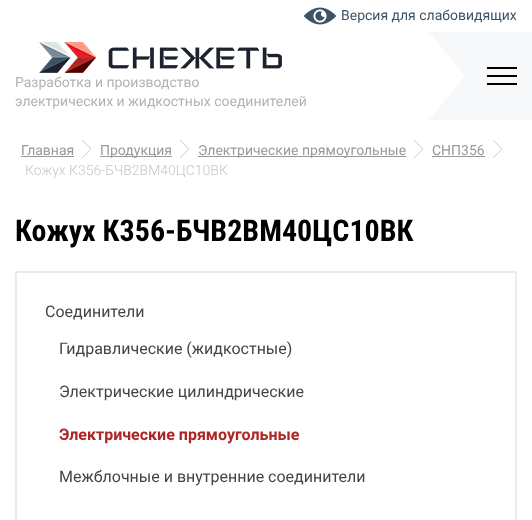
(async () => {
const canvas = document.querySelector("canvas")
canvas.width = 532
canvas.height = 520
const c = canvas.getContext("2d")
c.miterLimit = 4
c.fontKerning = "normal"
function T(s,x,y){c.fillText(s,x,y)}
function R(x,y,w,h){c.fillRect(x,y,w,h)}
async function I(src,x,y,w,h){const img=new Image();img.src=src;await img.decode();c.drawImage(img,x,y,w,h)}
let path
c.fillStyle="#fff"
R(0,0,532,520)
await I("1.png",304,7,32,18)
c.font="14px Roboto"
c.fillStyle="#3d5265"
T("Версия для слабовидящих",341,20)
c.fillStyle="#f6f8fa"
path = new Path2D("M429 32h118l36 44l-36 44h-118l36-44z")
c.fill(path)
await I("2.png",39,42,243,31)
c.fillStyle="#b2b2b2"
T("Разработка и производство",15,87)
T("электрических и жидкостных соединителей",15,106)
c.fillStyle="#000"
R(487,67,30,2)
R(487,75,30,2)
R(487,83,30,2)
c.fillStyle="#999"
T("Главная",21,155)
R(21,156,53,1)
await I("3.png",82,140,9,18)
R(100,156,72,1)
T("Продукция",100,155)
await I("3.png",180,140,9,18)
R(198,156,208,1)
T("Электрические прямоугольные",198,155)
await I("3.png",414,140,9,18)
T("СНП356",432,155)
R(432,156,53,1)
await I("3.png",493,140,9,18)
c.font="300 14px Roboto"
c.fillStyle="#c6c6c6"
T("Кожух К356-БЧВ2ВМ40ЦС10ВК",25,175)
c.font="bold 30px Roboto Condensed"
c.fillStyle="#000"
T("Кожух К356-БЧВ2ВМ40ЦС10ВК",15,241)
c.strokeStyle="#ebebeb"
c.lineWidth=2
c.strokeRect(16,272,500,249)
c.font="16px Roboto"
c.fillStyle="#444"
T("Соединители",45,317)
T("Гидравлические (жидкостные)",59,354)
T("Электрические цилиндрические",59,397)
c.font="bold 16px Roboto"
c.fillStyle="#ad2624"
T("Электрические прямоугольные",59,440)
c.font="16px Roboto"
c.fillStyle="#444"
T("Межблочные и внутренние соединители",59,482)
})()
